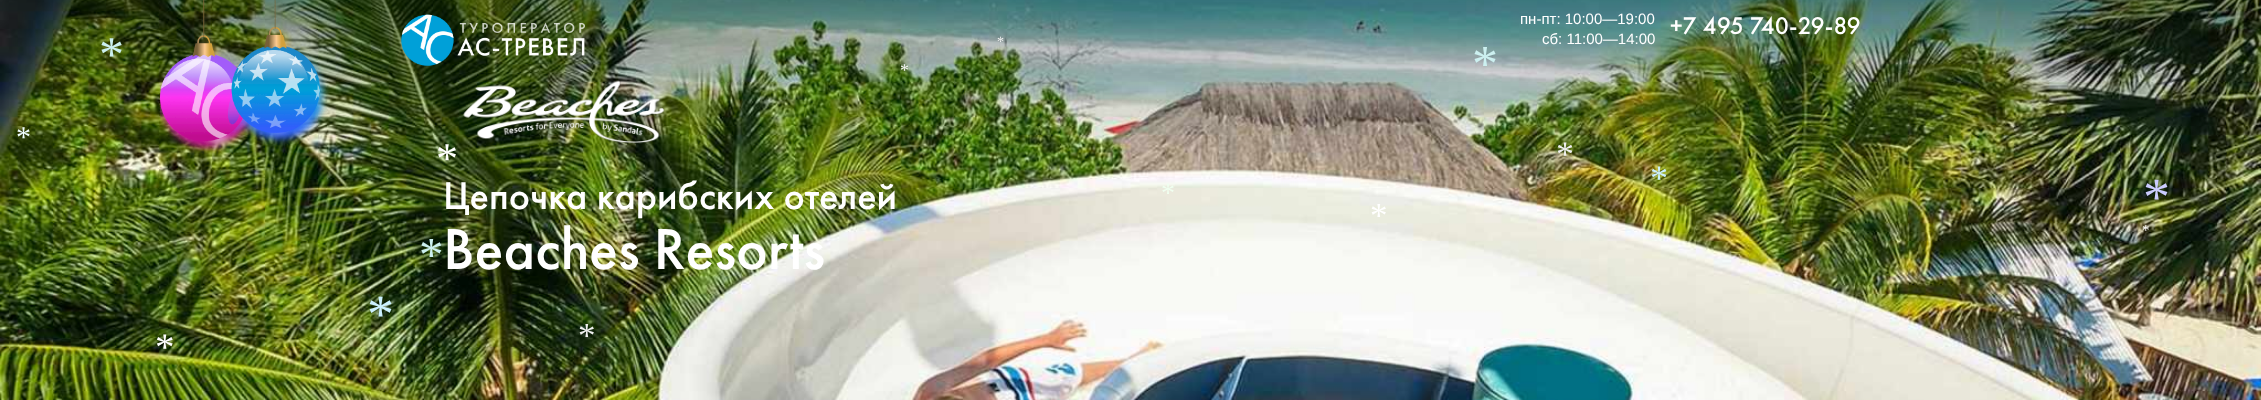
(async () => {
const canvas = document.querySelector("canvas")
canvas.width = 2261
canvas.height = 400
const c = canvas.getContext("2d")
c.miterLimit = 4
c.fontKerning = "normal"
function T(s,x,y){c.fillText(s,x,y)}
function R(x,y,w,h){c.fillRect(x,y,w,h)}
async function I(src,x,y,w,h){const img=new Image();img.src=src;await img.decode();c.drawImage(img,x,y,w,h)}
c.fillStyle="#fff"
R(0,0,2261,400)
await I("2.png",0,0,2261,400)
await I("1.png",160,0,170,154)
await I("3.png",401,14,184,53)
c.font="15px Liberation Sans"
T("пн-пт: 10:00—19:00",1520,24)
T("сб: 11:00—14:00",1542,44)
c.font="500 25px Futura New"
T("+7 495 740-29-89",1670,34)
await I("4.png",463,80,202,64)
c.font="500 40.25px Futura New"
T("Цепочка карибских отелей",443,209)
c.font="500 60px Futura New"
T("Beaches Resorts",443,269)
c.font="50px Liberation Serif"
c.fillStyle="#ccf0f0"
T("*",99,71)
c.font="14px Liberation Serif"
c.fillStyle="#f0f0f0"
T("*",997,46)
c.font="52px Liberation Serif"
c.fillStyle="#ccf0f0"
T("*",1472,81)
c.font="18px Liberation Serif"
c.fillStyle="#f0f0f0"
T("*",900,76)
c.font="30px Liberation Serif"
c.fillStyle="#f0ffff"
T("*",16,147)
c.font="44px Liberation Serif"
c.fillStyle="#fff"
T("*",436,173)
c.font="36px Liberation Serif"
c.fillStyle="#f0f0f0"
T("*",1556,166)
c.fillStyle="#ccf0ff"
T("*",1650,190)
c.font="28px Liberation Serif"
c.fillStyle="#f0fff0"
T("*",1161,202)
c.font="54px Liberation Serif"
c.fillStyle="#ccf"
T("*",2143,215)
c.font="35px Liberation Serif"
c.fillStyle="#fff"
T("*",1370,227)
c.font="15px Liberation Serif"
T("*",2142,235)
c.font="49px Liberation Serif"
c.fillStyle="#ccf0f0"
T("*",419,271)
c.font="54px Liberation Serif"
c.fillStyle="#ccf0ff"
T("*",367,332)
c.font="35px Liberation Serif"
c.fillStyle="#f0f0f0"
T("*",578,347)
c.font="39px Liberation Serif"
c.fillStyle="#fff"
T("*",155,360)
})()
